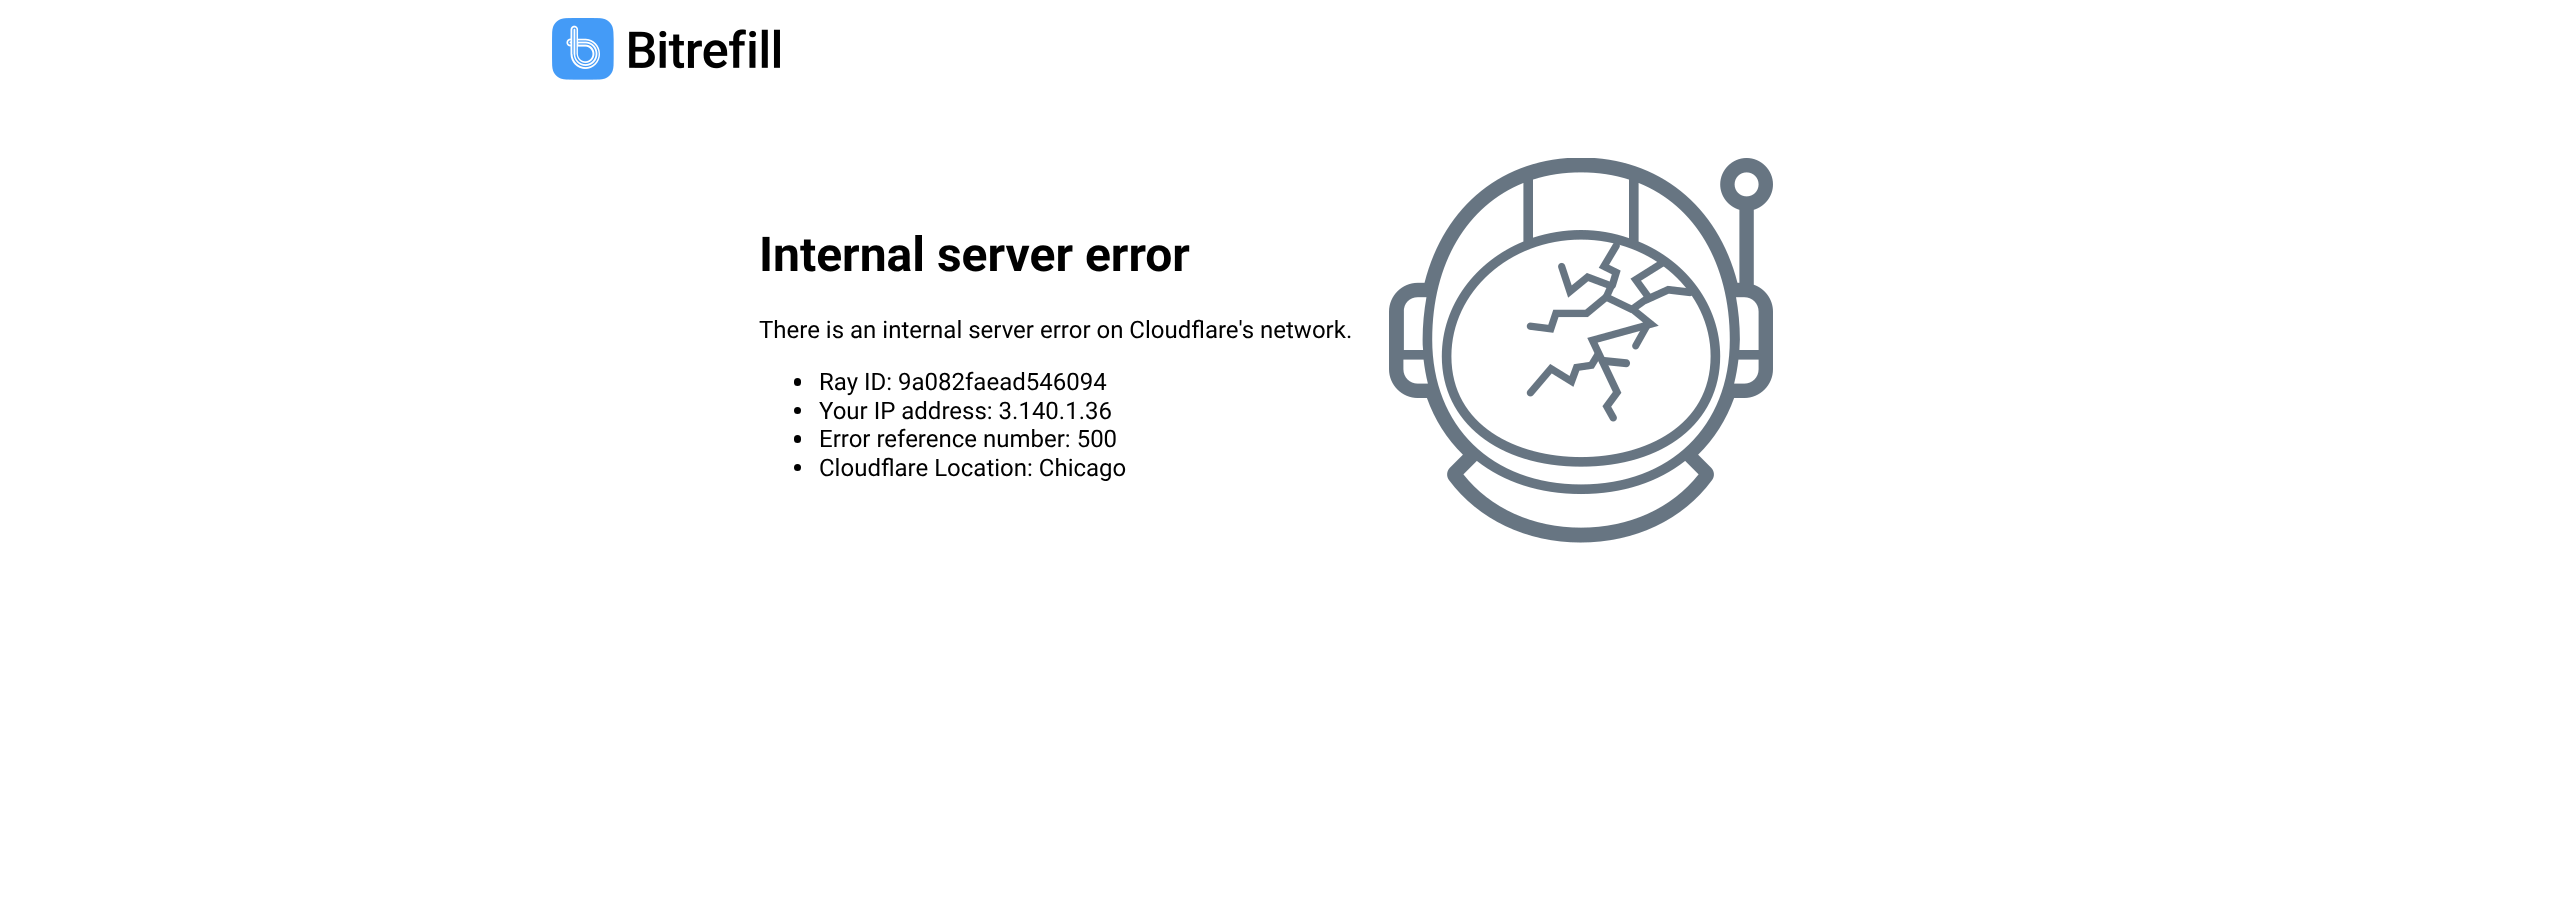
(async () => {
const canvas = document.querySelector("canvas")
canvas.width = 2567
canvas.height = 898
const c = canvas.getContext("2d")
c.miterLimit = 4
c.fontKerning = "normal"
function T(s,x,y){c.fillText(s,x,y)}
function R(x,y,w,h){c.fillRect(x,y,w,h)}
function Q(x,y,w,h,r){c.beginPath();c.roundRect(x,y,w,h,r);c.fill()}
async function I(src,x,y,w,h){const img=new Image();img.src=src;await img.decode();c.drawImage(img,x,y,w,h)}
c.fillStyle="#fff"
R(0,0,2567,898)
await I("1.png",552,18,228,62)
c.font="bold 48px Roboto"
c.fillStyle="#000"
T("Internal server error",759,271)
c.font="24px Roboto"
T("There is an internal server error on Cloudflare's network.",759,338)
Q(794,378,7,8,3.5)
T("Ray ID: 9a082faead546094",819,390)
c.beginPath()
c.arc(797.5,410.5,3.5,0,7)
c.fill()
T("Your IP address: 3.140.1.36",819,419)
Q(794,435,7,8,3.5)
T("Error reference number: 500",819,447)
c.beginPath()
c.arc(797.5,467.5,3.5,0,7)
c.fill()
T("Cloudflare Location: Chicago",819,476)
await I("2.png",1389,158,384,385)
})()
